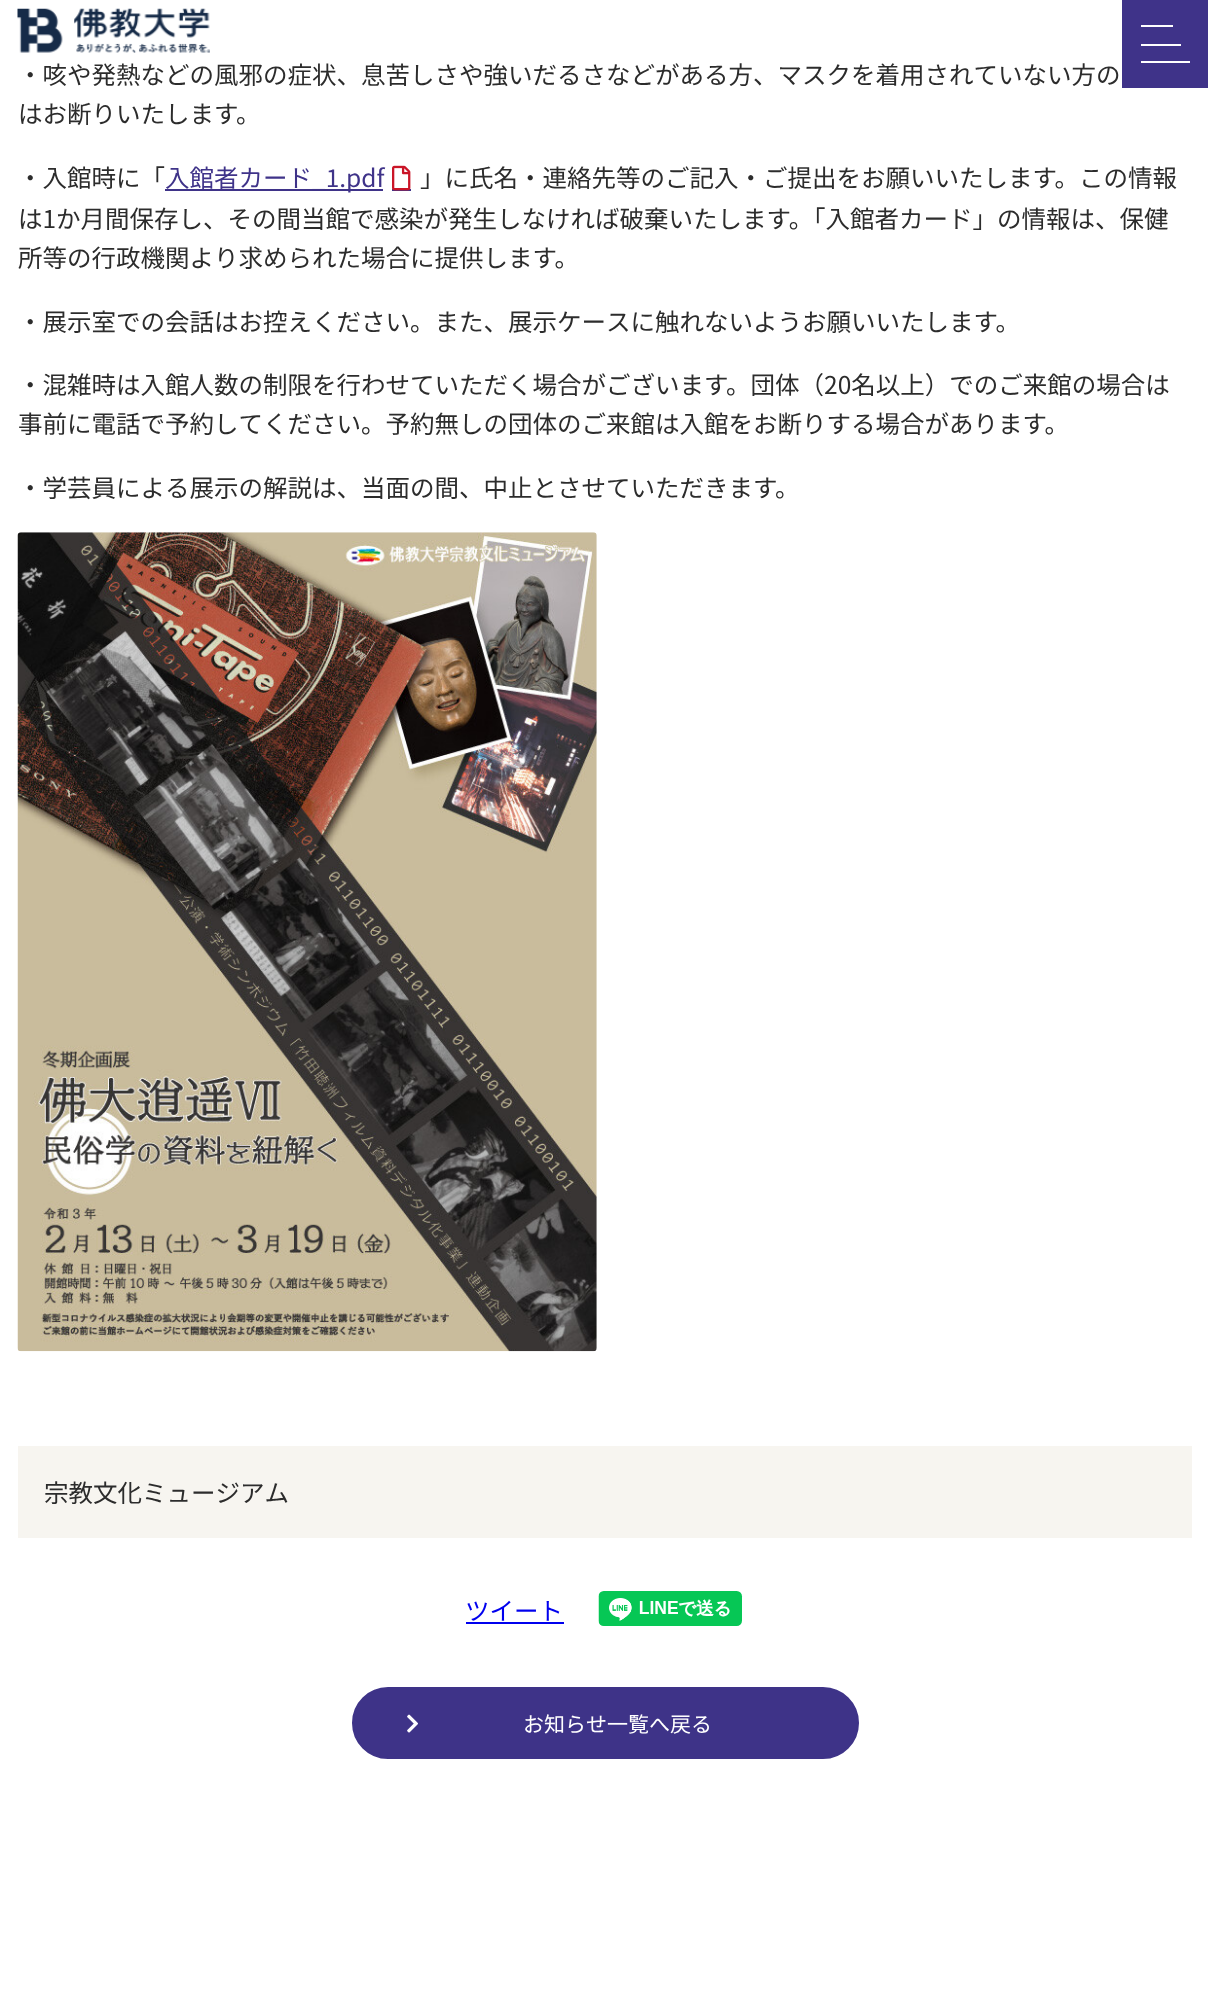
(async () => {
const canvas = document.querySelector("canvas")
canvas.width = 1208
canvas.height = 1998
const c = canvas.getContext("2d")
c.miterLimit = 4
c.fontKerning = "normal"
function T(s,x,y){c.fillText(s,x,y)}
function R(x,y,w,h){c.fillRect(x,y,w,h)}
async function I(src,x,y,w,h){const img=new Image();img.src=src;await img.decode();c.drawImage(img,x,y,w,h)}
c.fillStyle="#fff"
R(0,0,1208,1998)
await I("1.png",17,8,193,45)
c.fillStyle="#3f3389"
R(1122,0,86,88)
c.fillStyle="#fff"
R(1141,25,32,2)
R(1141,44,40,2)
R(1141,61,49,2)
c.font="24.5px Noto Sans CJK JP"
c.fillStyle="#2c2c2c"
T("・咳や発熱などの風邪の症状、息苦しさや強いだるさなどがある方、マスクを着用されていない方の",18,84)
T("はお断りいたします。",18,123)
T("・入館時に「",18,187)
c.fillStyle="#3f3389"
R(165,189,218,2)
T("入館者カード_1.pdf",165,187)
R(392,189,19,2)
await I("2.png",392,165,19,26)
c.fillStyle="#2c2c2c"
T("」に氏名・連絡先等のご記入・ご提出をお願いいたします。この情報",420,187)
T("は1か月間保存し、その間当館で感染が発生しなければ破棄いたします。「入館者カード」の情報は、保健",18,228)
T("所等の行政機関より求められた場合に提供します。",18,267)
T("・展示室での会話はお控えください。また、展示ケースに触れないようお願いいたします。",18,331)
T("・混雑時は入館人数の制限を行わせていただく場合がございます。団体（20名以上）でのご来館の場合は",18,394)
T("事前に電話で予約してください。予約無しの団体のご来館は入館をお断りする場合があります。",18,433)
T("・学芸員による展示の解説は、当面の間、中止とさせていただきます。",18,497)
await I("3.png",17,532,580,820)
c.fillStyle="#f7f5f0"
R(18,1446,1174,92)
c.fillStyle="#2c2c2c"
T("宗教文化ミュージアム",44,1502)
c.fillStyle="#00e"
T("ツイート",465,1620)
R(466,1622,98,2)
await I("4.png",598,1591,145,35)
c.fillStyle="#3e3388"
c.beginPath()
c.roundRect(353,1688,505,70,35)
c.fill()
c.strokeStyle="#3e3388"
c.lineWidth=2
c.stroke()
await I("5.png",407,1714,11,19)
c.font="21px Noto Sans CJK JP"
c.fillStyle="#fff"
T("お知らせ一覧へ戻る",523,1732)
})()
